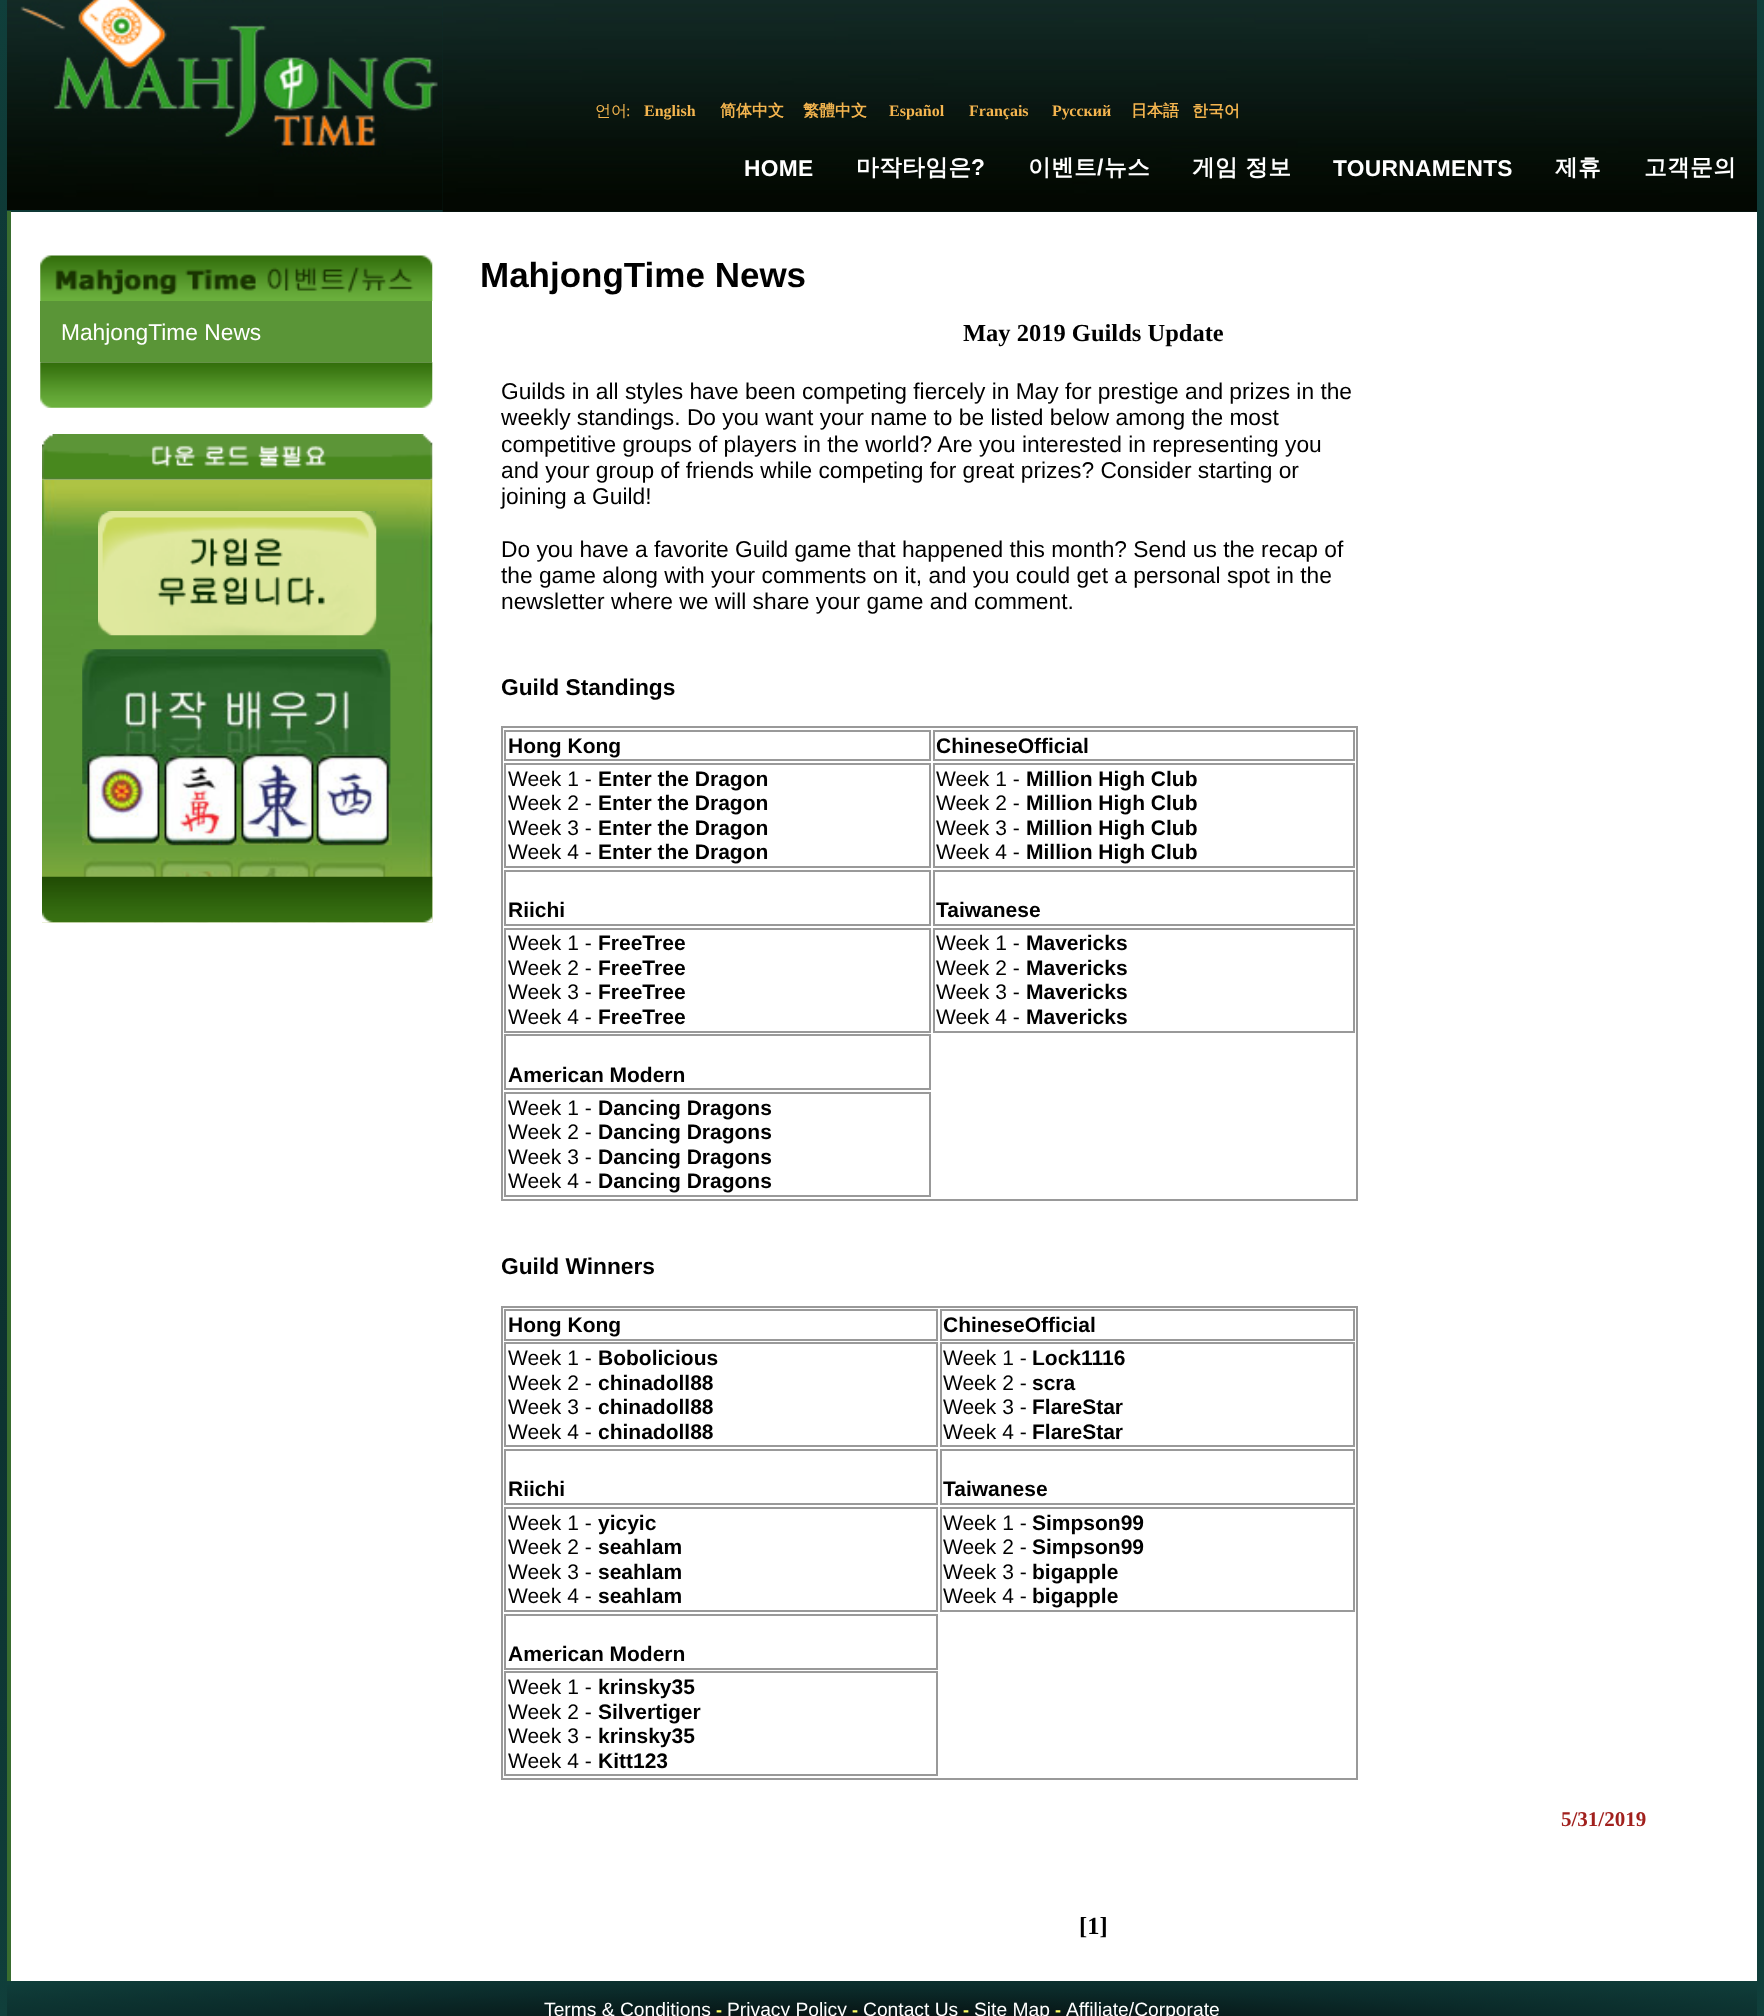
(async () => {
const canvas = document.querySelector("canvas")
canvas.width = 1764
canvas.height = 2016
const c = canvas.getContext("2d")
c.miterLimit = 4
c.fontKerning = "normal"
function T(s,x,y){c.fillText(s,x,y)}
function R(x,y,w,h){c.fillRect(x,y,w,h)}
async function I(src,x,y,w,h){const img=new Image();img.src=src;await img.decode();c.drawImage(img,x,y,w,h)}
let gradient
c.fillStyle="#fff"
R(0,0,1764,2016)
gradient = c.createRadialGradient(882,881.47,0,882,881.47,1247)
gradient.addColorStop(0,"#050607")
gradient.addColorStop(.6,"#0b2b2a")
gradient.addColorStop(1,"#103f3b")
c.fillStyle = gradient
c.beginPath()
c.rect(0,0,1764,2016)
c.save()
c.clip()
c.scale(1,1426 / 1247)
c.fillRect(0,0,1764,1763)
c.restore()
await I("2.png",442,0,1315,212)
await I("1.png",7,0,436,210)
c.font="500 16px WenQuanYi Zen Hei"
c.fillStyle="#f4b54f"
T("언어",595,116)
c.font="16px Liberation Serif"
T(":",626,116)
c.font="bold 16px Liberation Serif"
T("English",644,116)
c.font="bold 16px WenQuanYi Zen Hei"
T("简体中文",720,116)
T("繁體中文",803,116)
c.font="bold 16px Liberation Serif"
T("Español",889,116)
T("Français",969,116)
T("Русский",1052,116)
c.font="bold 16px WenQuanYi Zen Hei"
T("日本語",1131,116)
T("한국어",1192,116)
c.letterSpacing="0.3px"
c.font="bold 22.75px Liberation Sans"
c.fillStyle="#fff"
T("HOME",744,176)
c.font="bold 22.75px WenQuanYi Zen Hei"
T("마작타임은",856,175)
c.font="bold 22.75px Liberation Sans"
T("?",971,175)
c.font="bold 22.75px WenQuanYi Zen Hei"
T("이벤트",1028,175)
c.font="bold 22.75px Liberation Sans"
T("/",1097,175)
c.font="bold 22.75px WenQuanYi Zen Hei"
T("뉴스",1104,175)
T("게임 정보",1192,175)
c.font="bold 22.75px Liberation Sans"
T("TOURNAMENTS",1333,176)
c.font="bold 22.75px WenQuanYi Zen Hei"
T("제휴",1555,175)
T("고객문의",1644,175)
R(11,212,1746,1769)
c.fillStyle="#396d2f"
R(7,211,4,1770)
await I("3.png",40,255,393,46)
c.fillStyle="#5a9537"
R(40,301,392,61)
c.letterSpacing="0px"
c.font="22.75px Liberation Sans"
c.fillStyle="#fff"
T("MahjongTime News",61,340)
await I("4.png",40,362,393,46)
await I("6.png",42,479,391,444)
await I("5.png",42,434,391,46)
await I("7.png",98,511,279,125)
await I("8.png",82,649,310,197)
await I("9.png",42,876,391,47)
c.font="bold 35px Liberation Sans"
c.fillStyle="#000"
T("MahjongTime News",480,287)
c.font="bold 24.5px Liberation Serif"
T("May 2019 Guilds Update",963,341)
c.font="22.75px Liberation Sans"
T("Guilds in all styles have been competing fiercely in May for prestige and prizes in the",501,399)
T("weekly standings. Do you want your name to be listed below among the most",501,425)
T("competitive groups of players in the world? Are you interested in representing you",501,452)
T("and your group of friends while competing for great prizes? Consider starting or",501,478)
T("joining a Guild!",501,504)
T("Do you have a favorite Guild game that happened this month? Send us the recap of",501,557)
T("the game along with your comments on it, and you could get a personal spot in the",501,583)
T("newsletter where we will share your game and comment.",501,609)
c.font="bold 22.75px Liberation Sans"
T("Guild Standings",501,695)
c.strokeStyle="#999"
c.lineWidth=2
c.strokeRect(502,727,855,473)
c.strokeRect(505,731,425,29)
c.font="bold 21px Liberation Sans"
T("Hong Kong",508,753)
c.strokeRect(934,731,420,29)
T("ChineseOfficial",936,753)
c.strokeRect(505,764,425,103)
c.font="21px Liberation Sans"
T("Week 1 -",508,786)
c.font="bold 21px Liberation Sans"
T("Enter the Dragon",598,786)
c.font="21px Liberation Sans"
T("Week 2 -",508,810)
c.font="bold 21px Liberation Sans"
T("Enter the Dragon",598,810)
c.font="21px Liberation Sans"
T("Week 3 -",508,835)
c.font="bold 21px Liberation Sans"
T("Enter the Dragon",598,835)
c.font="21px Liberation Sans"
T("Week 4 -",508,859)
c.font="bold 21px Liberation Sans"
T("Enter the Dragon",598,859)
c.strokeRect(934,764,420,103)
c.font="21px Liberation Sans"
T("Week 1 -",936,786)
c.font="bold 21px Liberation Sans"
T("Million High Club",1026,786)
c.font="21px Liberation Sans"
T("Week 2 -",936,810)
c.font="bold 21px Liberation Sans"
T("Million High Club",1026,810)
c.font="21px Liberation Sans"
T("Week 3 -",936,835)
c.font="bold 21px Liberation Sans"
T("Million High Club",1026,835)
c.font="21px Liberation Sans"
T("Week 4 -",936,859)
c.font="bold 21px Liberation Sans"
T("Million High Club",1026,859)
c.strokeRect(505,871,425,54)
T("Riichi",508,917)
c.strokeRect(934,871,420,54)
T("Taiwanese",936,917)
c.strokeRect(505,929,425,103)
c.font="21px Liberation Sans"
T("Week 1 -",508,950)
c.font="bold 21px Liberation Sans"
T("FreeTree",598,950)
c.font="21px Liberation Sans"
T("Week 2 -",508,975)
c.font="bold 21px Liberation Sans"
T("FreeTree",598,975)
c.font="21px Liberation Sans"
T("Week 3 -",508,999)
c.font="bold 21px Liberation Sans"
T("FreeTree",598,999)
c.font="21px Liberation Sans"
T("Week 4 -",508,1024)
c.font="bold 21px Liberation Sans"
T("FreeTree",598,1024)
c.strokeRect(934,929,420,103)
c.font="21px Liberation Sans"
T("Week 1 -",936,950)
c.font="bold 21px Liberation Sans"
T("Mavericks",1026,950)
c.font="21px Liberation Sans"
T("Week 2 -",936,975)
c.font="bold 21px Liberation Sans"
T("Mavericks",1026,975)
c.font="21px Liberation Sans"
T("Week 3 -",936,999)
c.font="bold 21px Liberation Sans"
T("Mavericks",1026,999)
c.font="21px Liberation Sans"
T("Week 4 -",936,1024)
c.font="bold 21px Liberation Sans"
T("Mavericks",1026,1024)
c.strokeRect(505,1035,425,54)
T("American Modern",508,1082)
c.strokeRect(505,1093,425,103)
c.font="21px Liberation Sans"
T("Week 1 -",508,1115)
c.font="bold 21px Liberation Sans"
T("Dancing Dragons",598,1115)
c.font="21px Liberation Sans"
T("Week 2 -",508,1139)
c.font="bold 21px Liberation Sans"
T("Dancing Dragons",598,1139)
c.font="21px Liberation Sans"
T("Week 3 -",508,1164)
c.font="bold 21px Liberation Sans"
T("Dancing Dragons",598,1164)
c.font="21px Liberation Sans"
T("Week 4 -",508,1188)
c.font="bold 21px Liberation Sans"
T("Dancing Dragons",598,1188)
c.font="bold 22.75px Liberation Sans"
T("Guild Winners",501,1274)
c.strokeRect(502,1307,855,472)
c.strokeRect(505,1310,432,30)
c.font="bold 21px Liberation Sans"
T("Hong Kong",508,1332)
c.strokeRect(941,1310,413,30)
T("ChineseOfficial",943,1332)
c.strokeRect(505,1343,432,103)
c.font="21px Liberation Sans"
T("Week 1 -",508,1365)
c.font="bold 21px Liberation Sans"
T("Bobolicious",598,1365)
c.font="21px Liberation Sans"
T("Week 2 -",508,1390)
c.font="bold 21px Liberation Sans"
T("chinadoll88",598,1390)
c.font="21px Liberation Sans"
T("Week 3 -",508,1414)
c.font="bold 21px Liberation Sans"
T("chinadoll88",598,1414)
c.font="21px Liberation Sans"
T("Week 4 -",508,1439)
c.font="bold 21px Liberation Sans"
T("chinadoll88",598,1439)
c.strokeRect(941,1343,413,103)
c.font="21px Liberation Sans"
T("Week 1 -",943,1365)
c.font="bold 21px Liberation Sans"
T("Lock1116",1032,1365)
c.font="21px Liberation Sans"
T("Week 2 -",943,1390)
c.font="bold 21px Liberation Sans"
T("scra",1032,1390)
c.font="21px Liberation Sans"
T("Week 3 -",943,1414)
c.font="bold 21px Liberation Sans"
T("FlareStar",1032,1414)
c.font="21px Liberation Sans"
T("Week 4 -",943,1439)
c.font="bold 21px Liberation Sans"
T("FlareStar",1032,1439)
c.strokeRect(505,1450,432,54)
T("Riichi",508,1496)
c.strokeRect(941,1450,413,54)
T("Taiwanese",943,1496)
c.strokeRect(505,1508,432,103)
c.font="21px Liberation Sans"
T("Week 1 -",508,1530)
c.font="bold 21px Liberation Sans"
T("yicyic",598,1530)
c.font="21px Liberation Sans"
T("Week 2 -",508,1554)
c.font="bold 21px Liberation Sans"
T("seahlam",598,1554)
c.font="21px Liberation Sans"
T("Week 3 -",508,1579)
c.font="bold 21px Liberation Sans"
T("seahlam",598,1579)
c.font="21px Liberation Sans"
T("Week 4 -",508,1603)
c.font="bold 21px Liberation Sans"
T("seahlam",598,1603)
c.strokeRect(941,1508,413,103)
c.font="21px Liberation Sans"
T("Week 1 -",943,1530)
c.font="bold 21px Liberation Sans"
T("Simpson99",1032,1530)
c.font="21px Liberation Sans"
T("Week 2 -",943,1554)
c.font="bold 21px Liberation Sans"
T("Simpson99",1032,1554)
c.font="21px Liberation Sans"
T("Week 3 -",943,1579)
c.font="bold 21px Liberation Sans"
T("bigapple",1032,1579)
c.font="21px Liberation Sans"
T("Week 4 -",943,1603)
c.font="bold 21px Liberation Sans"
T("bigapple",1032,1603)
c.strokeRect(505,1615,432,54)
T("American Modern",508,1661)
c.strokeRect(505,1672,432,103)
c.font="21px Liberation Sans"
T("Week 1 -",508,1694)
c.font="bold 21px Liberation Sans"
T("krinsky35",598,1694)
c.font="21px Liberation Sans"
T("Week 2 -",508,1719)
c.font="bold 21px Liberation Sans"
T("Silvertiger",598,1719)
c.font="21px Liberation Sans"
T("Week 3 -",508,1743)
c.font="bold 21px Liberation Sans"
T("krinsky35",598,1743)
c.font="21px Liberation Sans"
T("Week 4 -",508,1768)
c.font="bold 21px Liberation Sans"
T("Kitt123",598,1768)
c.font="bold 21px Liberation Serif"
c.fillStyle="#a1201d"
T("5/31/2019",1561,1826)
c.font="bold 24.5px Liberation Serif"
c.fillStyle="#000"
T("[1]",1079,1934)
gradient = c.createRadialGradient(882,34910.89,0,882,34910.89,1237)
gradient.addColorStop(0,"#050607")
gradient.addColorStop(.6,"#0b2b2a")
gradient.addColorStop(1,"#103f3b")
c.fillStyle = gradient
c.beginPath()
c.rect(7,1985,1750,31)
c.save()
c.clip()
c.scale(1,72 / 1237)
c.fillRect(0,0,1764,34636)
c.restore()
c.font="19.25px Liberation Sans"
c.fillStyle="#fff"
T("Terms & Conditions",544,2016)
c.font="bold 18px Liberation Sans"
c.fillStyle="#ff6"
T("-",716,2016)
c.font="19.25px Liberation Sans"
c.fillStyle="#fff"
T("Privacy Policy",727,2016)
c.font="bold 18px Liberation Sans"
c.fillStyle="#ff6"
T("-",852,2016)
c.font="19.25px Liberation Sans"
c.fillStyle="#fff"
T("Contact Us",863,2016)
c.font="bold 18px Liberation Sans"
c.fillStyle="#ff6"
T("-",963,2016)
c.font="19.25px Liberation Sans"
c.fillStyle="#fff"
T("Site Map",974,2016)
c.font="bold 18px Liberation Sans"
c.fillStyle="#ff6"
T("-",1055,2016)
c.font="19.25px Liberation Sans"
c.fillStyle="#fff"
T("Affiliate/Corporate",1066,2016)
})()
